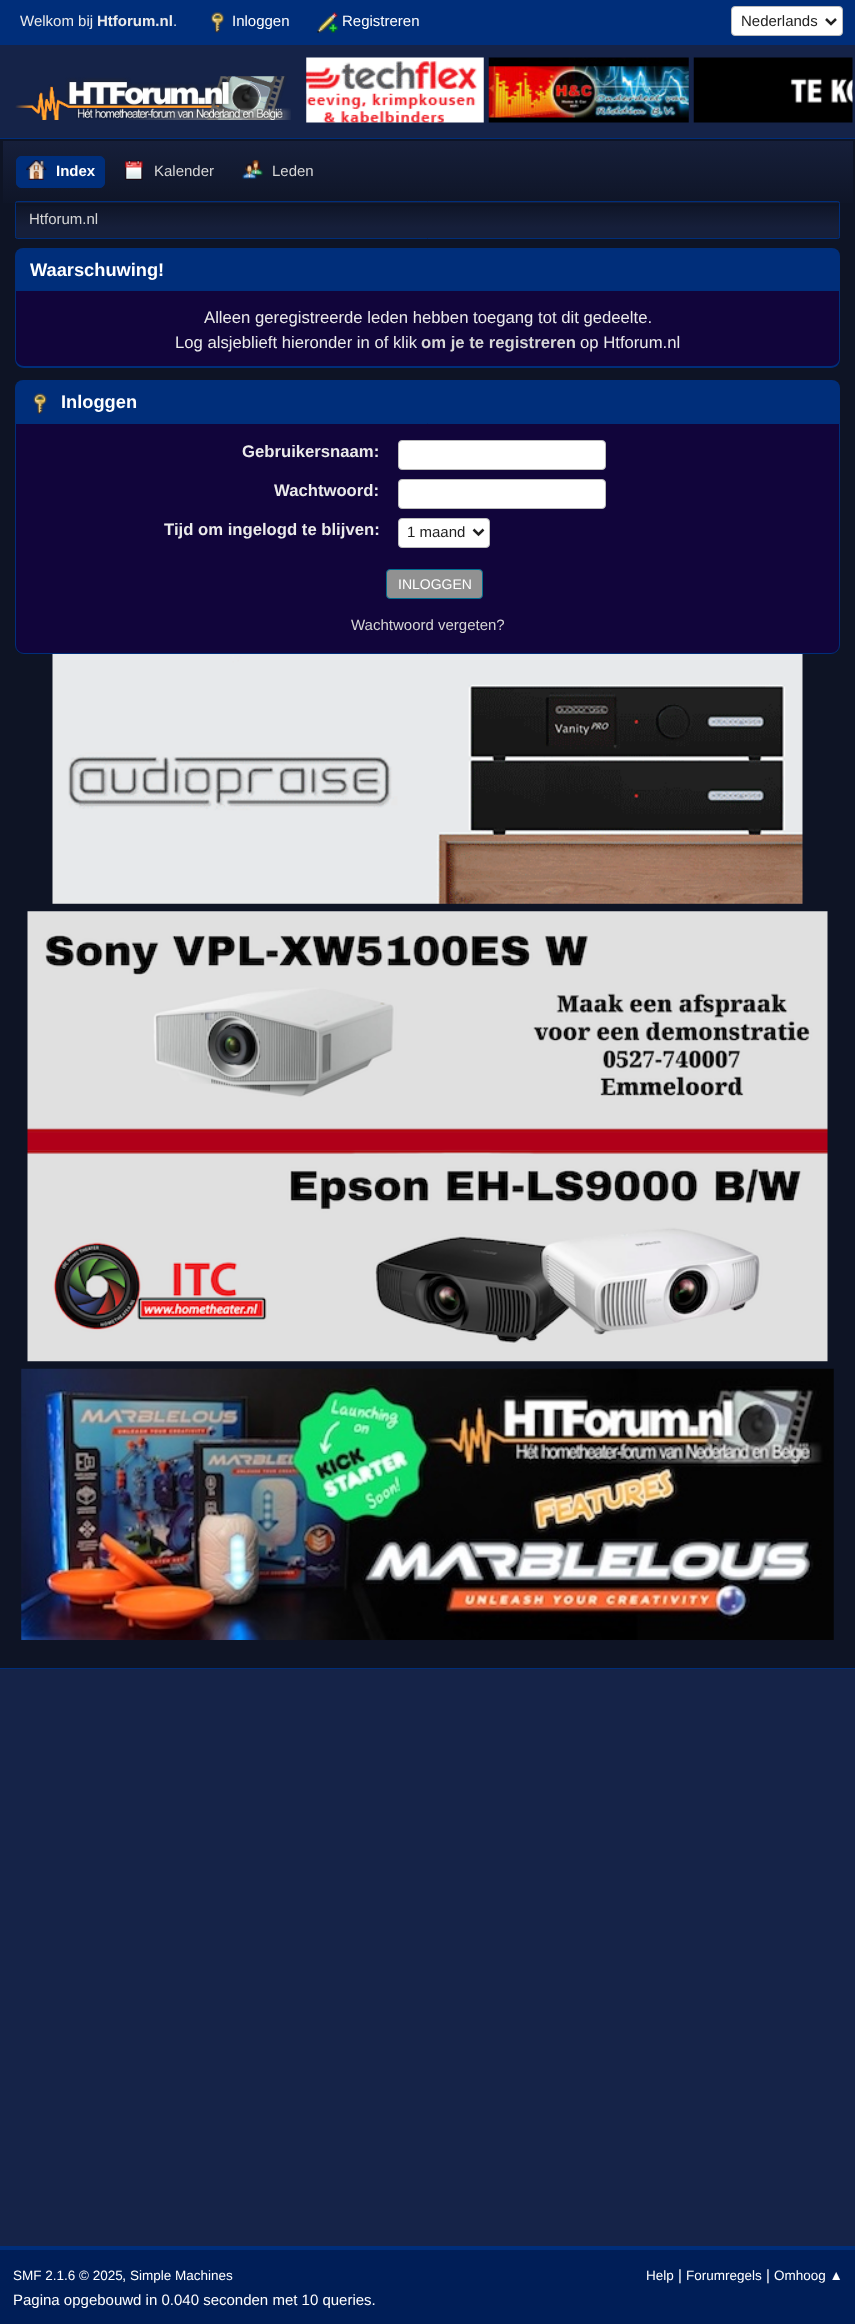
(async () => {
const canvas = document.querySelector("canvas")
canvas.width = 855
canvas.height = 2324
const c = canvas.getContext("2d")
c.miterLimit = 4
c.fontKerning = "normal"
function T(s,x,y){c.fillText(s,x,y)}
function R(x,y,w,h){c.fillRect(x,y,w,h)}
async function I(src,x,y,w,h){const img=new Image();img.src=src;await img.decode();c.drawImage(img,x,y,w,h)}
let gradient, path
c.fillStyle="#152348"
R(0,0,855,2324)
c.fillStyle="#002e7a"
R(0,0,855,45)
c.font="15px Liberation Sans"
c.fillStyle="#ebebeb"
T("Welkom bij",20,26)
c.font="bold 15px Liberation Sans"
T("Htforum.nl",97,26)
c.font="15px Liberation Sans"
T(".",173,26)
await I("1.png",211,12,13,21)
c.fillStyle="#fff"
T("Inloggen",232,26)
await I("2.png",317,12,21,21)
T("Registreren",342,26)
c.beginPath()
c.roundRect(731.5,6.5,111,29,3.5)
c.fill()
c.strokeStyle="#bbb"
c.stroke()
path = new Path2D("M826 19l5 5l5-5")
c.strokeStyle="#222"
c.lineWidth=2.5
c.stroke(path)
c.fillStyle="#222"
T("Nederlands",741,26)
await I("3.png",15,76,276,44)
await I("4.png",306,57,547,66)
c.fillStyle="#0e1425"
R(0,139,855,1529)
c.fillStyle="#002e7a"
R(0,138,855,1)
R(0,1668,855,1)
gradient = c.createLinearGradient(428,141,428,241)
gradient.addColorStop(0,"#161f3a")
gradient.addColorStop(.7,"#0e1425")
c.fillStyle = gradient
R(3,141,850,62)
c.fillStyle="#002e7a"
c.beginPath()
c.roundRect(16.5,156.5,88,31,4.5)
c.fill()
c.strokeStyle="#002e7a"
c.lineWidth=1
c.stroke()
await I("5.png",26,160,21,20)
c.font="bold 15px Liberation Sans"
c.fillStyle="#fff"
T("Index",56,176)
await I("6.png",124,160,19,20)
c.font="15px Liberation Sans"
c.fillStyle="#d6d6d6"
T("Kalender",154,176)
await I("7.png",242,160,21,19)
T("Leden",272,176)
c.save()
c.beginPath()
c.roundRect(15,201,825,38,2.5)
c.clip()
gradient = c.createLinearGradient(428,167,428,203)
gradient.addColorStop(0,"#0e1425")
gradient.addColorStop(.7,"#161f3a")
c.fillStyle = gradient
R(15,201,825,2)
c.restore()
gradient = c.createLinearGradient(428,202,428,238)
gradient.addColorStop(0,"#0e1425")
gradient.addColorStop(.7,"#161f3a")
c.fillStyle = gradient
R(15,206,825,32)
c.beginPath()
c.roundRect(15.5,201.5,824,37,2)
c.stroke()
c.fillStyle="#d6d6d6"
T("Htforum.nl",29,224)
c.fillStyle="#002e7a"
c.beginPath()
c.roundRect(15,248,825,43,[8,8,0,0])
c.fill()
c.font="bold 18.25px Liberation Sans"
c.fillStyle="#fff"
T("Waarschuwing!",30,276)
c.fillStyle="#11053b"
c.beginPath()
c.roundRect(15,291,825,77,[0,0,9,9])
c.fill()
c.fillStyle="#002e7a"
path = new Path2D("M15 291h825v68c0 5-4 9-9 9h-807c-5 0-9-4-9-9zm1 0h823v68c0 4-4 7-8 7h-807c-4 0-8-3-8-7z")
c.fill(path,"evenodd")
c.font="16.7px Liberation Sans"
c.fillStyle="#ebebeb"
T("Alleen geregistreerde leden hebben toegang tot dit gedeelte.",204,323)
T("Log alsjeblieft hieronder in of klik",175,348)
c.font="bold 16.7px Liberation Sans"
c.fillStyle="#d6d6d6"
T("om je te registreren",421,348)
c.font="16.7px Liberation Sans"
c.fillStyle="#ebebeb"
T("op Htforum.nl",580,348)
c.fillStyle="#002e7a"
c.beginPath()
c.roundRect(15,380,825,44,[8,8,0,0])
c.fill()
await I("8.png",33,393,14,21)
c.font="bold 18.25px Liberation Sans"
c.fillStyle="#fff"
T("Inloggen",61,408)
c.fillStyle="#11053b"
c.beginPath()
c.roundRect(15.5,423.5,824,230,[0,0,8.5,8.5])
c.fill()
c.stroke()
c.font="bold 16.7px Liberation Sans"
c.fillStyle="#ebebeb"
T("Gebruikersnaam:",242,457)
c.fillStyle="#fff"
c.beginPath()
c.roundRect(398.5,440.5,207,29,3.5)
c.fill()
c.strokeStyle="#bbb"
c.stroke()
c.fillStyle="#ebebeb"
T("Wachtwoord:",274,496)
c.fillStyle="#fff"
c.beginPath()
c.roundRect(398.5,479.5,207,29,3.5)
c.fill()
c.stroke()
c.fillStyle="#ebebeb"
T("Tijd om ingelogd te blijven:",164,535)
c.fillStyle="#fff"
c.beginPath()
c.roundRect(398.5,518.5,91,29,3.5)
c.fill()
c.stroke()
path = new Path2D("M473.5 529.5l5 5l5-5")
c.strokeStyle="#222"
c.lineWidth=2.5
c.stroke(path)
c.font="15px Liberation Sans"
c.fillStyle="#222"
T("1 maand",407,537)
c.fillStyle="#919191"
c.beginPath()
c.roundRect(386.5,569.5,96,29,3.5)
c.fill()
c.strokeStyle="#006d8f"
c.lineWidth=1
c.stroke()
c.font="14px Liberation Sans"
c.fillStyle="#fff"
T("INLOGGEN",398,589)
c.font="15px Liberation Sans"
c.fillStyle="#d6d6d6"
T("Wachtwoord vergeten?",351,630)
await I("9.png",52,654,751,250)
await I("10.png",27,911,801,451)
await I("11.png",21,1368,813,272)
c.fillStyle="#001e57"
R(0,2250,855,74)
c.fillStyle="#002e7a"
R(0,2246,855,4)
c.font="13.5px Liberation Sans"
c.fillStyle="#fff"
T("SMF 2.1.6 © 2025",13,2280)
c.font="15px Liberation Sans"
T(",",122,2280)
c.font="13.5px Liberation Sans"
T("Simple Machines",130,2280)
T("Help",646,2280)
c.font="15px Liberation Sans"
T("|",678,2280)
c.font="13.5px Liberation Sans"
T("Forumregels",686,2280)
c.font="15px Liberation Sans"
T("|",766,2280)
c.font="13.5px Liberation Sans"
T("Omhoog ▲",774,2280)
c.font="15px Liberation Sans"
T("Pagina opgebouwd in 0.040 seconden met 10 queries.",13,2305)
})()
